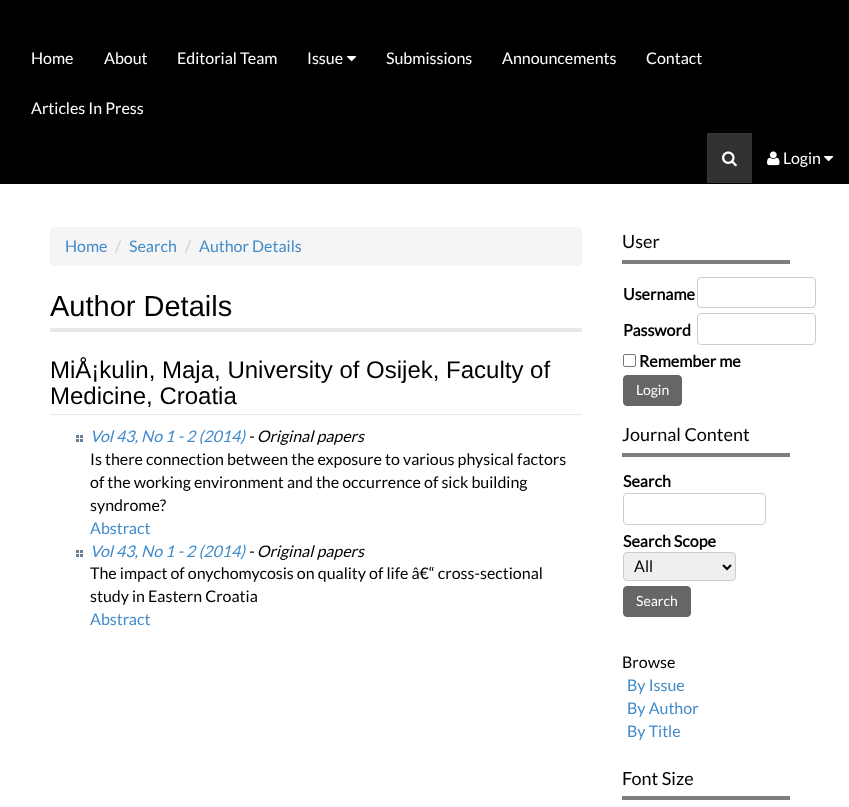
(async () => {
const canvas = document.querySelector("canvas")
canvas.width = 849
canvas.height = 807
const c = canvas.getContext("2d")
c.miterLimit = 4
c.fontKerning = "normal"
function T(s,x,y){c.fillText(s,x,y)}
function R(x,y,w,h){c.fillRect(x,y,w,h)}
function Q(x,y,w,h,r){c.beginPath();c.roundRect(x,y,w,h,r);c.fill()}
async function I(src,x,y,w,h){const img=new Image();img.src=src;await img.decode();c.drawImage(img,x,y,w,h)}
let path
c.fillStyle="#fff"
R(0,0,849,807)
c.fillStyle="#000"
R(0,0,849,184)
c.font="16px Lato"
c.fillStyle="#fff"
T("Home",31,64)
T("About",104,64)
T("Editorial Team",177,64)
T("Issue",307,64)
await I("1.png",347,56,10,6)
T("Submissions",386,64)
T("Announcements",502,64)
T("Contact",646,64)
T("Articles In Press",31,114)
c.fillStyle="#323232"
R(707,133,45,50)
await I("2.png",722,151,15,16)
await I("3.png",767,151,13,15)
c.fillStyle="#fff"
T("Login",783,164)
await I("1.png",824,156,10,6)
c.fillStyle="#f5f5f5"
Q(50,227,532,39,4)
c.fillStyle="#428bca"
T("Home",65,252)
c.fillStyle="#ccc"
T("/",115,252)
c.fillStyle="#428bca"
T("Search",129,252)
c.fillStyle="#ccc"
T("/",185,252)
c.fillStyle="#428bca"
T("Author Details",199,252)
c.fillStyle="#e7e7e7"
R(50,328,532,4)
c.font="29px Liberation Sans"
c.fillStyle="#000"
T("Author Details",50,316)
c.fillStyle="#e7e7e7"
R(50,414,532,1)
c.font="24px Liberation Sans"
c.fillStyle="#000"
T("MiÅ¡kulin, Maja, University of Osijek, Faculty of",50,378)
T("Medicine, Croatia",50,404)
await I("4.png",76,435,7,7)
c.font="italic 16px Lato"
c.fillStyle="#428bca"
T("Vol 43, No 1 - 2 (2014)",90,442)
c.fillStyle="#000"
T("- Original papers",248,442)
c.font="16px Lato"
T("Is there connection between the exposure to various physical factors",90,465)
T("of the working environment and the occurrence of sick building",90,488)
T("syndrome?",90,511)
c.fillStyle="#428bca"
T("Abstract",90,534)
await I("4.png",76,550,7,7)
c.font="italic 16px Lato"
T("Vol 43, No 1 - 2 (2014)",90,557)
c.fillStyle="#000"
T("- Original papers",248,557)
c.font="16px Lato"
T("The impact of onychomycosis on quality of life â€“ cross-sectional",90,579)
T("study in Eastern Croatia",90,602)
c.fillStyle="#428bca"
T("Abstract",90,625)
c.fillStyle="#7e7e7e"
R(622,260,168,4)
c.font="18px Lato"
c.fillStyle="#000"
T("User",622,248)
c.font="bold 16px Lato"
T("Username",623,300)
c.beginPath()
c.roundRect(697.5,277.5,118,30,3.5)
c.strokeStyle="#ccc"
c.stroke()
T("Password",623,336)
c.beginPath()
c.roundRect(697.5,313.5,118,31,3.5)
c.stroke()
c.beginPath()
c.roundRect(623.5,354.5,12,12,1.5)
c.strokeStyle="#767676"
c.stroke()
T("Remember me",639,367)
c.fillStyle="#666"
c.beginPath()
c.roundRect(623.5,375.5,58,30,3.5)
c.fill()
c.strokeStyle="#666"
c.stroke()
c.font="14px Lato"
c.fillStyle="#fff"
T("Login",636,395)
c.fillStyle="#7e7e7e"
R(622,453,168,4)
c.font="18px Lato"
c.fillStyle="#000"
T("Journal Content",622,441)
c.font="bold 16px Lato"
T("Search",623,487)
c.beginPath()
c.roundRect(623.5,493.5,142,31,3.5)
c.strokeStyle="#ccc"
c.stroke()
T("Search Scope",623,547)
c.fillStyle="#efefef"
c.beginPath()
c.roundRect(623.5,552.5,112,28,3.5)
c.fill()
c.stroke()
path = new Path2D("M723 565l4 4l4-4")
c.strokeStyle="#000"
c.lineWidth=2
c.stroke(path)
c.font="16px Lato"
c.fillStyle="#000"
T("All",634,572)
c.fillStyle="#666"
c.beginPath()
c.roundRect(623.5,586.5,67,30,3.5)
c.fill()
c.strokeStyle="#666"
c.lineWidth=1
c.stroke()
c.font="14px Lato"
c.fillStyle="#fff"
T("Search",636,606)
c.font="16px Lato"
c.fillStyle="#000"
T("Browse",622,668)
c.fillStyle="#428bca"
T("By Issue",627,691)
T("By Author",627,714)
T("By Title",627,737)
c.fillStyle="#7e7e7e"
R(622,796,168,4)
c.font="18px Lato"
c.fillStyle="#000"
T("Font Size",622,785)
})()
